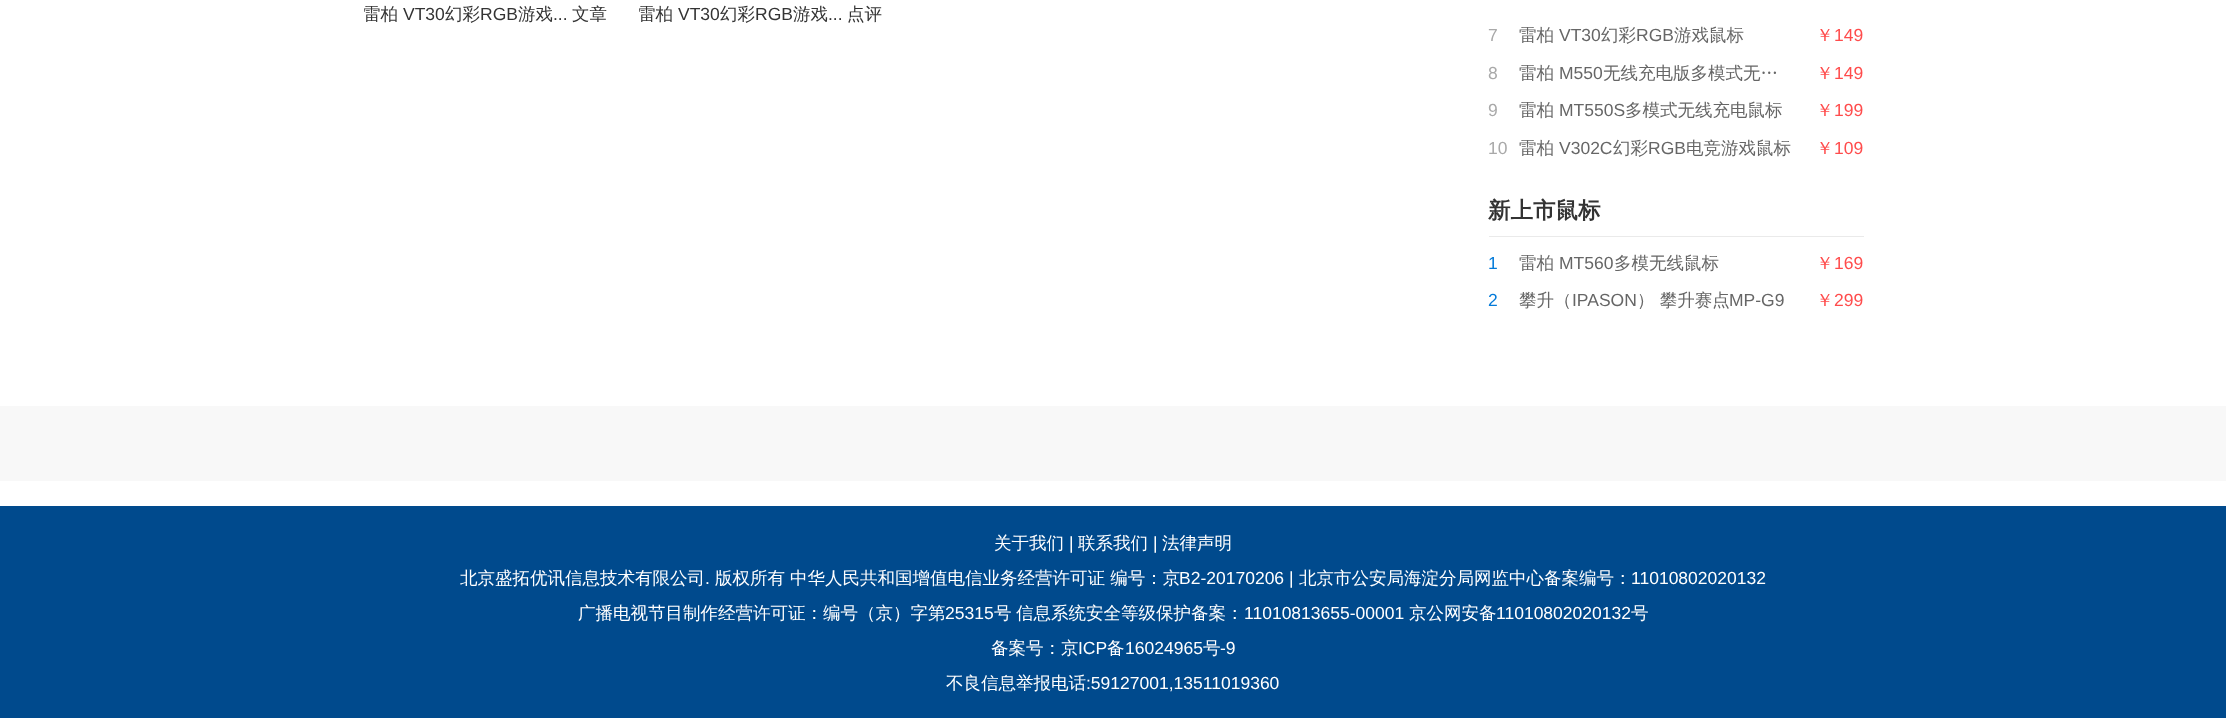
(async () => {
const canvas = document.querySelector("canvas")
canvas.width = 2226
canvas.height = 718
const c = canvas.getContext("2d")
c.miterLimit = 4
c.fontKerning = "normal"
function T(s,x,y){c.fillText(s,x,y)}
function R(x,y,w,h){c.fillRect(x,y,w,h)}
c.fillStyle="#fff"
R(0,0,2226,718)
c.save()
c.beginPath()
c.rect(364,0,275,38)
c.clip()
c.font="500 17.5px WenQuanYi Zen Hei"
c.fillStyle="#333"
T("雷柏",363,20)
c.restore()
c.font="17.5px Liberation Sans"
c.fillStyle="#333"
T("VT30",403,20)
c.font="500 17.5px WenQuanYi Zen Hei"
T("幻彩",445,20)
c.font="17.5px Liberation Sans"
T("RGB",480,20)
c.font="500 17.5px WenQuanYi Zen Hei"
T("游戏",518,20)
c.font="17.5px Liberation Sans"
T("...",553,20)
c.font="500 17.5px WenQuanYi Zen Hei"
T("文章",572,20)
c.save()
c.beginPath()
c.rect(639,0,275,38)
c.clip()
T("雷柏",638,20)
c.restore()
c.font="17.5px Liberation Sans"
T("VT30",678,20)
c.font="500 17.5px WenQuanYi Zen Hei"
T("幻彩",720,20)
c.font="17.5px Liberation Sans"
T("RGB",755,20)
c.font="500 17.5px WenQuanYi Zen Hei"
T("游戏",793,20)
c.font="17.5px Liberation Sans"
T("...",828,20)
c.font="500 17.5px WenQuanYi Zen Hei"
T("点评",847,20)
c.font="17.5px Liberation Sans"
c.fillStyle="#a9a9a9"
T("7",1488,41)
c.font="500 17.5px WenQuanYi Zen Hei"
c.fillStyle="#666"
T("雷柏",1519,41)
c.font="17.5px Liberation Sans"
T("VT30",1559,41)
c.font="500 17.5px WenQuanYi Zen Hei"
T("幻彩",1601,41)
c.font="17.5px Liberation Sans"
T("RGB",1636,41)
c.font="500 17.5px WenQuanYi Zen Hei"
T("游戏鼠标",1674,41)
c.fillStyle="#ff4c4c"
T("￥",1816,41)
c.font="17.5px Liberation Sans"
T("149",1834,41)
c.fillStyle="#a9a9a9"
T("8",1488,79)
c.font="500 17.5px WenQuanYi Zen Hei"
c.fillStyle="#666"
T("雷柏",1519,79)
c.font="17.5px Liberation Sans"
T("M550",1559,79)
c.font="500 17.5px WenQuanYi Zen Hei"
T("无线充电版多模式无…",1603,79)
c.fillStyle="#ff4c4c"
T("￥",1816,79)
c.font="17.5px Liberation Sans"
T("149",1834,79)
c.fillStyle="#a9a9a9"
T("9",1488,116)
c.font="500 17.5px WenQuanYi Zen Hei"
c.fillStyle="#666"
T("雷柏",1519,116)
c.font="17.5px Liberation Sans"
T("MT550S",1559,116)
c.font="500 17.5px WenQuanYi Zen Hei"
T("多模式无线充电鼠标",1625,116)
c.fillStyle="#ff4c4c"
T("￥",1816,116)
c.font="17.5px Liberation Sans"
T("199",1834,116)
c.fillStyle="#a9a9a9"
T("10",1488,154)
c.font="500 17.5px WenQuanYi Zen Hei"
c.fillStyle="#666"
T("雷柏",1519,154)
c.font="17.5px Liberation Sans"
T("V302C",1559,154)
c.font="500 17.5px WenQuanYi Zen Hei"
T("幻彩",1613,154)
c.font="17.5px Liberation Sans"
T("RGB",1648,154)
c.font="500 17.5px WenQuanYi Zen Hei"
T("电竞游戏鼠标",1686,154)
c.fillStyle="#ff4c4c"
T("￥",1816,154)
c.font="17.5px Liberation Sans"
T("109",1834,154)
c.fillStyle="#eaeaea"
R(1489,236,375,1)
c.font="bold 22.5px WenQuanYi Zen Hei"
c.fillStyle="#333"
T("新上市鼠标",1488,218)
c.font="17.5px Liberation Sans"
c.fillStyle="#037ad9"
T("1",1488,269)
c.font="500 17.5px WenQuanYi Zen Hei"
c.fillStyle="#666"
T("雷柏",1519,269)
c.font="17.5px Liberation Sans"
T("MT560",1559,269)
c.font="500 17.5px WenQuanYi Zen Hei"
T("多模无线鼠标",1614,269)
c.fillStyle="#ff4c4c"
T("￥",1816,269)
c.font="17.5px Liberation Sans"
T("169",1834,269)
c.fillStyle="#037ad9"
T("2",1488,306)
c.font="500 17.5px WenQuanYi Zen Hei"
c.fillStyle="#666"
T("攀升（",1519,306)
c.font="17.5px Liberation Sans"
T("IPASON",1572,306)
c.font="500 17.5px WenQuanYi Zen Hei"
T("） 攀升赛点",1637,306)
c.font="17.5px Liberation Sans"
T("MP-G9",1729,306)
c.font="500 17.5px WenQuanYi Zen Hei"
c.fillStyle="#ff4c4c"
T("￥",1816,306)
c.font="17.5px Liberation Sans"
T("299",1834,306)
c.fillStyle="#f8f8f8"
R(0,406,2226,75)
c.fillStyle="#004a8d"
R(0,506,2226,212)
c.font="500 17.5px WenQuanYi Zen Hei"
c.fillStyle="#fff"
T("关于我们",994,549)
c.font="17.5px Liberation Sans"
T("|",1069,549)
c.font="500 17.5px WenQuanYi Zen Hei"
T("联系我们",1078,549)
c.font="17.5px Liberation Sans"
T("|",1153,549)
c.font="500 17.5px WenQuanYi Zen Hei"
T("法律声明",1162,549)
T("北京盛拓优讯信息技术有限公司",460,584)
c.font="17.5px Liberation Sans"
T(".",705,584)
c.font="500 17.5px WenQuanYi Zen Hei"
T("版权所有",715,584)
T("中华人民共和国增值电信业务经营许可证 编号：京",790,584)
c.font="17.5px Liberation Sans"
T("B2-20170206 |",1179,584)
c.font="500 17.5px WenQuanYi Zen Hei"
T("北京市公安局海淀分局网监中心备案编号：",1299,584)
c.font="17.5px Liberation Sans"
T("11010802020132",1631,584)
c.font="500 17.5px WenQuanYi Zen Hei"
T("广播电视节目制作经营许可证：编号（京）字第",578,619)
c.font="17.5px Liberation Sans"
T("25315",945,619)
c.font="500 17.5px WenQuanYi Zen Hei"
T("号",994,619)
T("信息系统安全等级保护备案：",1016,619)
c.font="17.5px Liberation Sans"
T("11010813655-00001",1244,619)
c.font="500 17.5px WenQuanYi Zen Hei"
T("京公网安备",1409,619)
c.font="17.5px Liberation Sans"
T("11010802020132",1496,619)
c.font="500 17.5px WenQuanYi Zen Hei"
T("号",1631,619)
T("备案号：京",991,654)
c.font="17.5px Liberation Sans"
T("ICP",1078,654)
c.font="500 17.5px WenQuanYi Zen Hei"
T("备",1107,654)
c.font="17.5px Liberation Sans"
T("16024965",1125,654)
c.font="500 17.5px WenQuanYi Zen Hei"
T("号",1203,654)
c.font="17.5px Liberation Sans"
T("-9",1220,654)
c.font="500 17.5px WenQuanYi Zen Hei"
T("不良信息举报电话",946,689)
c.font="17.5px Liberation Sans"
T(":59127001,13511019360",1086,689)
})()
